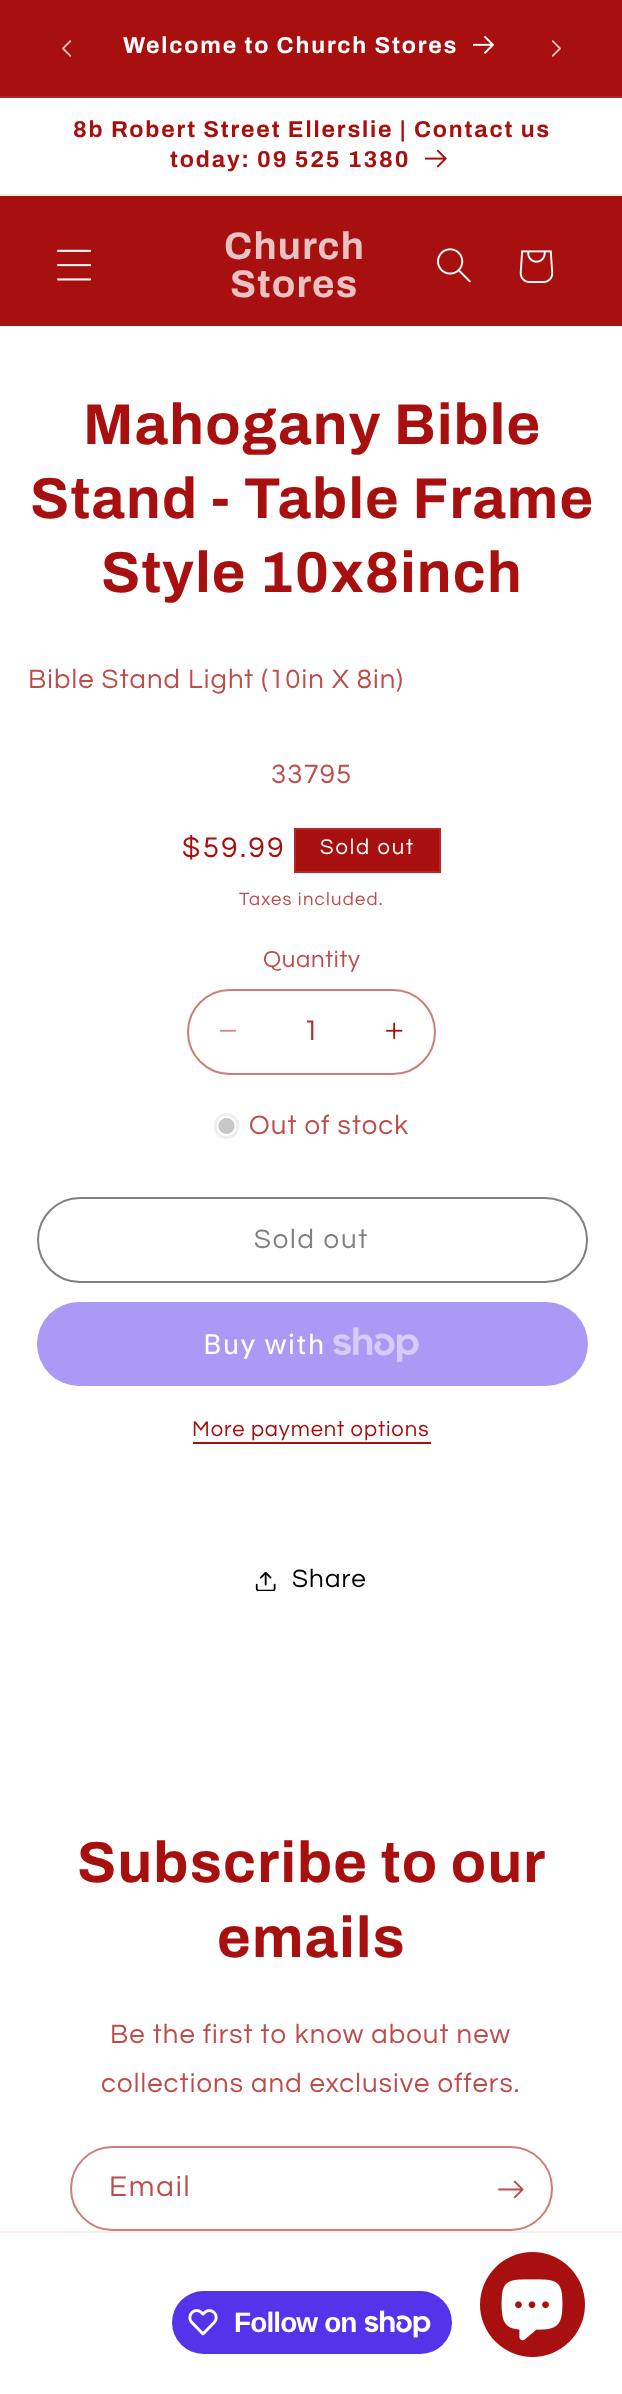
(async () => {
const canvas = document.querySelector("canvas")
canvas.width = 622
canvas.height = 2394
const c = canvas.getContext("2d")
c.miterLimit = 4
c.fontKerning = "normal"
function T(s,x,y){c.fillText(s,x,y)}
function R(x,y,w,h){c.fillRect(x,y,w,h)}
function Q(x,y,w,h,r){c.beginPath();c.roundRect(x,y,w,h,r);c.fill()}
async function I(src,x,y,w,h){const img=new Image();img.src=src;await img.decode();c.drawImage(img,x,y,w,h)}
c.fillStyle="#fff"
R(0,0,622,2394)
c.fillStyle="#a8100f"
R(0,0,622,96)
c.fillStyle="#af2322"
R(0,96,622,2)
await I("1.png",62,40,10,17)
c.letterSpacing="1.85px"
c.font="bold 23.1px Archivo"
c.fillStyle="#fff"
T("Welcome to Church Stores",123,53)
await I("2.png",473,36,21,18)
await I("3.png",551,40,10,17)
c.fillStyle="#f8ecec"
R(0,194,622,2)
c.fillStyle="#a8100f"
T("8b Robert Street Ellerslie | Contact us",73,137)
T("today: 09 525 1380",170,167)
await I("4.png",425,149,22,19)
R(0,196,622,130)
await I("5.png",57,249,35,32)
c.letterSpacing="1.2px"
c.font="bold 38.5px Archivo"
c.fillStyle="#e9c3c3"
T("Church",224,259)
T("Stores",230,297)
await I("6.png",437,248,34,35)
await I("7.png",519,250,35,33)
c.font="bold 57.75px Archivo"
c.fillStyle="#a8100f"
T("Mahogany Bible",83,444)
T("Stand - Table Frame",30,518)
T("Style 10x8inch",101,592)
c.letterSpacing="1.1px"
c.font="27.5px Questrial"
c.fillStyle="#be4c4b"
T("Bible Stand Light (10in X 8in)",28,688)
T("33795",271,783)
c.letterSpacing="2.5px"
c.font="29.5px Questrial"
c.fillStyle="#a8100f"
T("$59.99",182,857)
c.beginPath()
c.rect(295,829,145,43)
c.fill()
c.strokeStyle="#b12827"
c.lineWidth=2
c.stroke()
c.letterSpacing="1.85px"
c.font="22px Questrial"
c.fillStyle="#fff"
T("Sold out",320,854)
c.letterSpacing="1.25px"
c.font="18.5px Questrial"
c.fillStyle="#be4c4b"
T("Taxes included.",239,905)
c.letterSpacing="0.75px"
c.font="24px Questrial"
T("Quantity",263,967)
await I("8.png",219,1029,18,3)
await I("9.png",386,1022,17,17)
c.beginPath()
c.roundRect(188,990,247,84,42)
c.strokeStyle="#cf7c7b"
c.stroke()
c.letterSpacing="0px"
c.font="29.5px Questrial"
c.fillStyle="#b53433"
T("1",303,1040)
c.save()
c.beginPath()
c.rect(214,1113,26,26)
c.clip()
c.fillStyle="#efefef"
c.beginPath()
c.arc(226.5,1126,13,0,7)
c.fill()
c.restore()
c.fillStyle="#c8c8c8"
c.beginPath()
c.arc(226.5,1126,9,0,7)
c.fill()
c.strokeStyle="#fff"
c.lineWidth=1.8
c.stroke()
c.letterSpacing="1.1px"
c.font="27.5px Questrial"
c.fillStyle="#be4c4b"
T("Out of stock",249,1134)
c.beginPath()
c.roundRect(38,1198,549,84,42)
c.strokeStyle="#808080"
c.lineWidth=2
c.stroke()
c.letterSpacing="1.85px"
c.fillStyle="#808080"
T("Sold out",254,1248)
c.fillStyle="#aa99f5"
Q(37,1302,551,84,42)
c.letterSpacing="1.1px"
c.font="28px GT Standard"
c.fillStyle="#fff"
T("Buy with",203,1354)
await I("10.png",333,1327,86,35)
c.letterSpacing="0.9px"
c.font="22px Questrial"
c.fillStyle="#a8100f"
T("More payment options",192,1436)
R(193,1442,238,2)
await I("11.png",255,1571,21,20)
c.letterSpacing="1.1px"
c.font="26px Questrial"
c.fillStyle="#000"
T("Share",292,1587)
c.letterSpacing="1.2px"
c.font="bold 57.75px Archivo"
c.fillStyle="#a8100f"
T("Subscribe to our",77,1882)
T("emails",217,1957)
c.letterSpacing="1.1px"
c.font="27.5px Questrial"
c.fillStyle="#be4c4b"
T("Be the first to know about new",110,2043)
T("collections and exclusive offers.",101,2092)
c.beginPath()
c.roundRect(71,2147,481,83,41.5)
c.strokeStyle="#cf7c7b"
c.stroke()
c.letterSpacing="1.85px"
c.font="29.5px Questrial"
T("Email",109,2196)
await I("12.png",498,2180,26,19)
c.fillStyle="#f8ecec"
R(0,2231,622,2)
c.fillStyle="#5433eb"
Q(172,2291,280,63,31.5)
await I("13.png",188,2309,30,27)
c.letterSpacing="-0.9px"
c.font="bold 28px Liberation Sans"
c.fillStyle="#fff"
T("Follow on",234,2332)
await I("14.png",364,2310,67,28)
c.fillStyle="#a8100f"
c.beginPath()
c.arc(532.5,2304.5,52.5,0,7)
c.fill()
await I("15.png",501,2279,62,62)
})()
